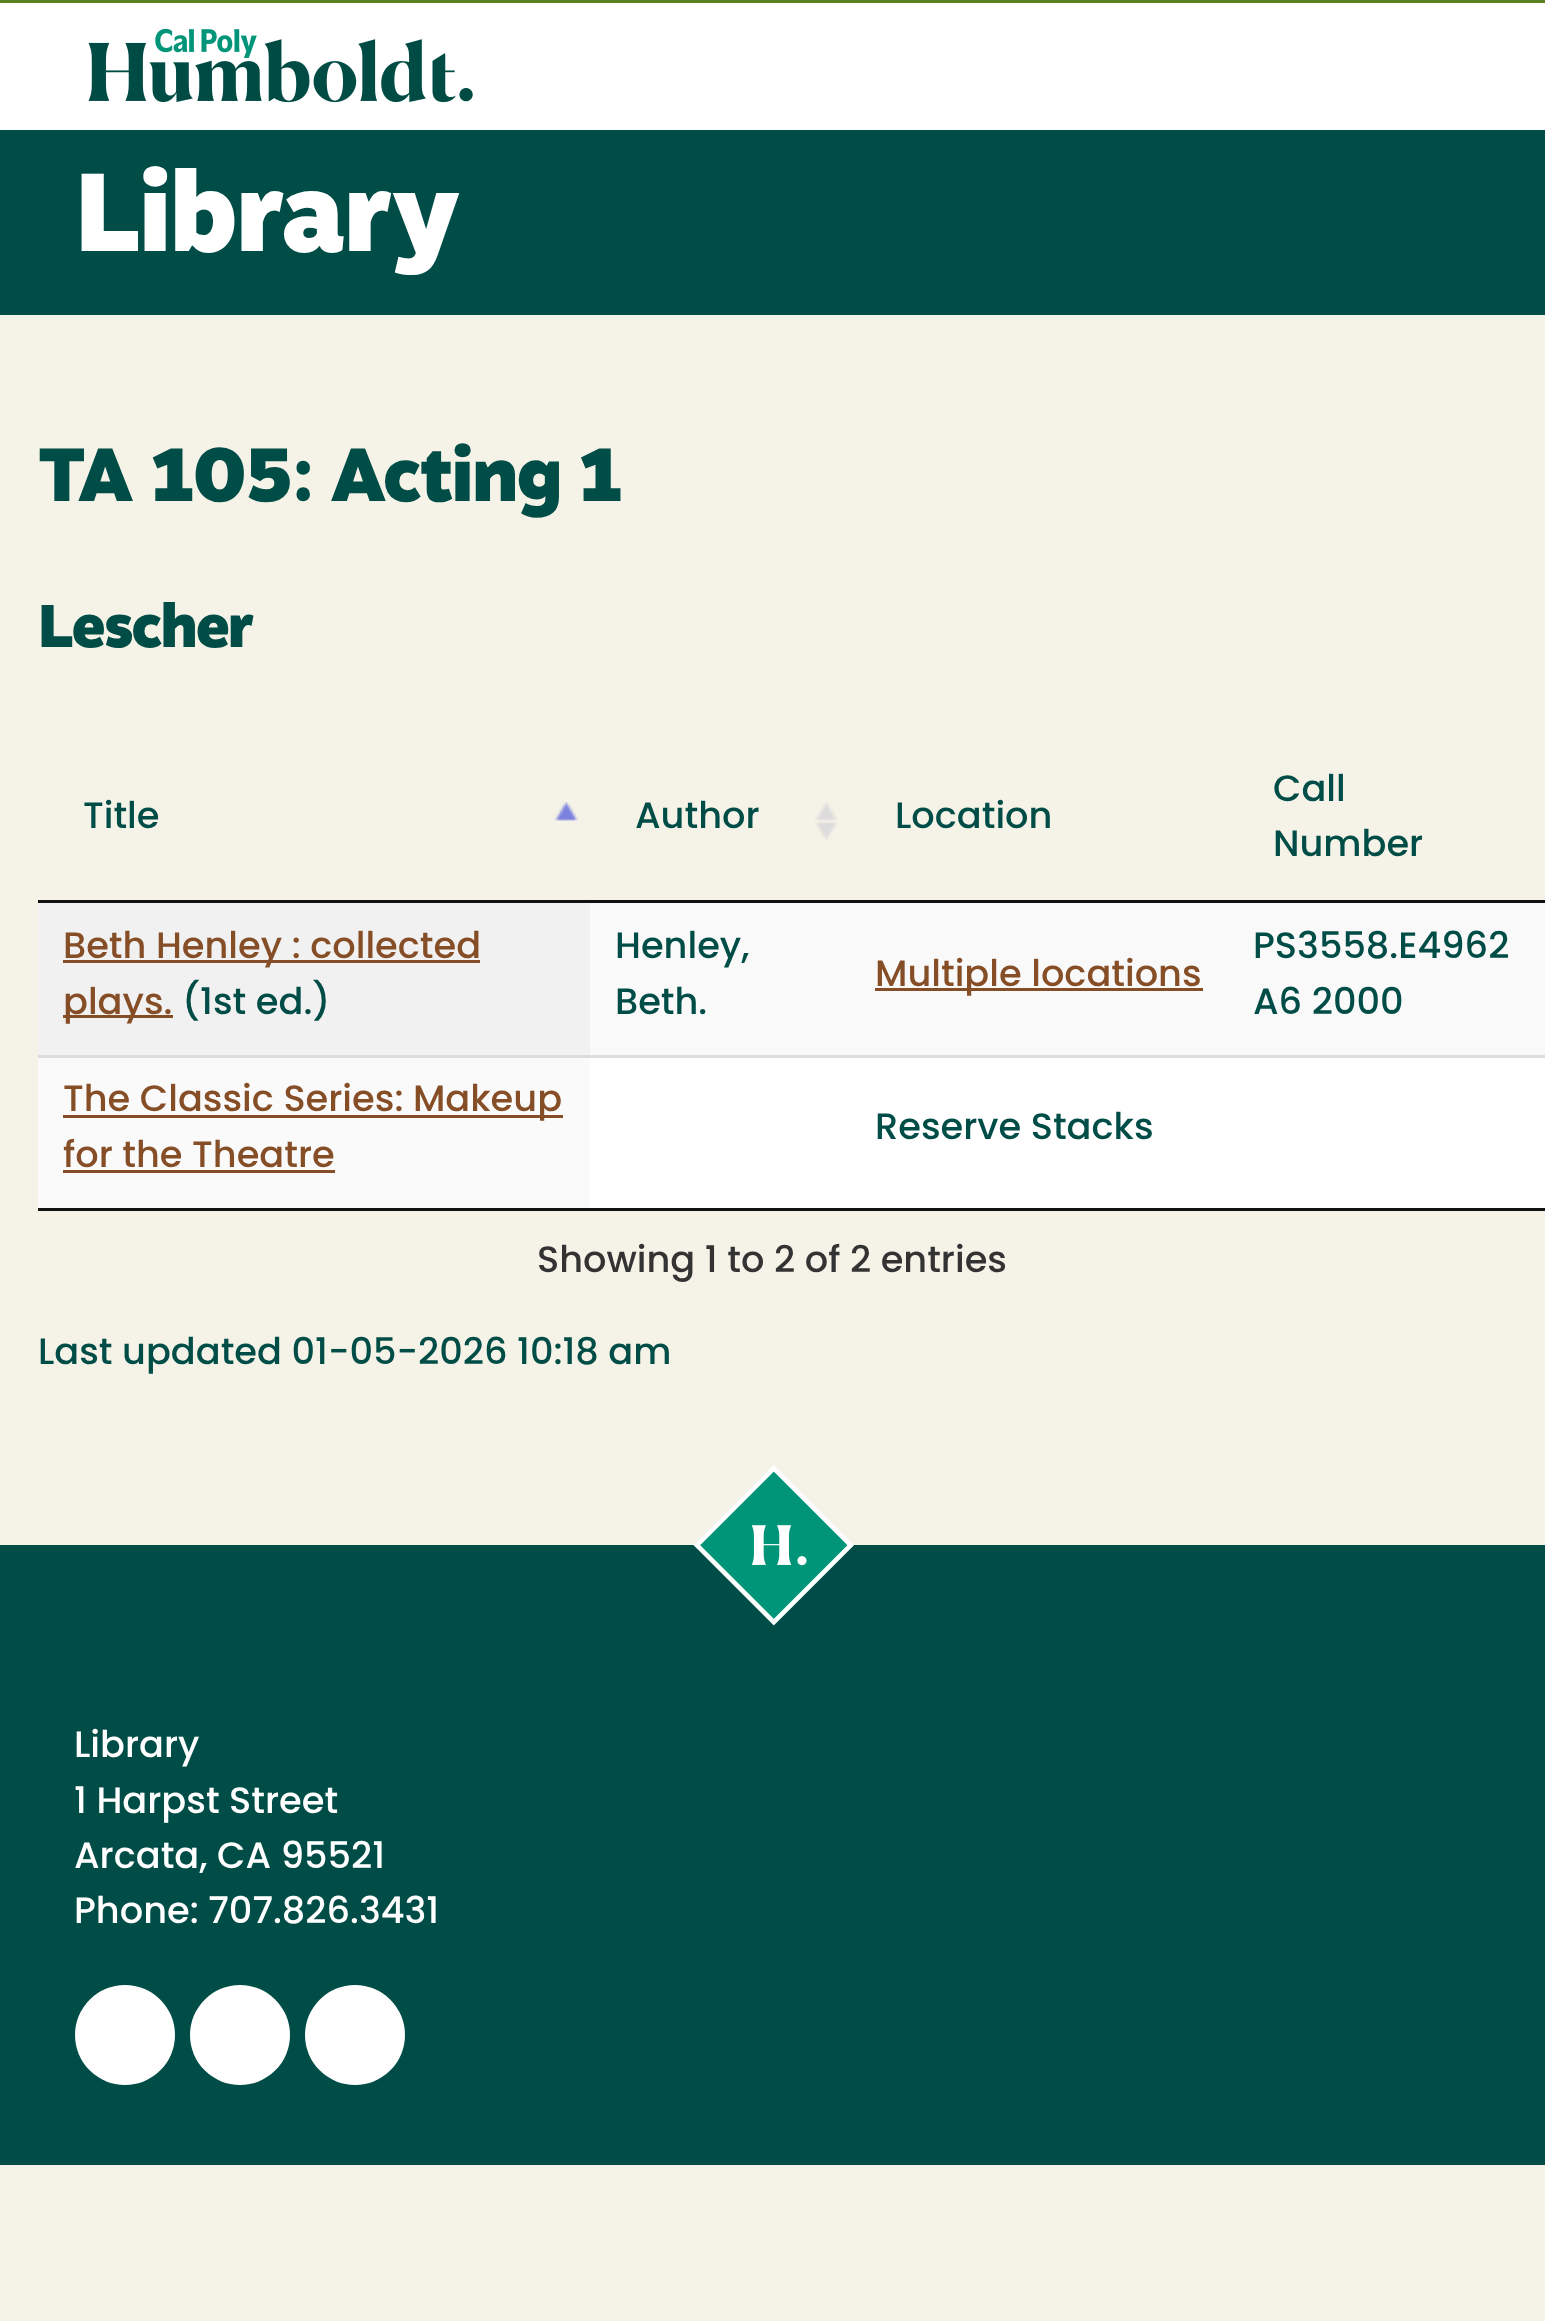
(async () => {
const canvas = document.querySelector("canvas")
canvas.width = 1545
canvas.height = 2321
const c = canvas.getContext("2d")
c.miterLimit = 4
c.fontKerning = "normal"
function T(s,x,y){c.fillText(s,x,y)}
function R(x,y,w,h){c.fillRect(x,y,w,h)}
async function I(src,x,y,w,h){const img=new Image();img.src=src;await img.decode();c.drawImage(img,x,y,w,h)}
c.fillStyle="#f5f3e7"
R(0,0,1545,2321)
c.fillStyle="#fff"
R(0,3,1545,127)
c.fillStyle="#5c8021"
R(0,0,1545,3)
await I("1.png",88,28,385,75)
c.fillStyle="#004c46"
R(0,130,1545,185)
c.letterSpacing="-1.8px"
c.font="900 110.5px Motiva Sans"
c.fillStyle="#fff"
T("Library",75,251)
c.font="900 75px Motiva Sans"
c.fillStyle="#004c46"
T("TA 105: Acting 1",38,501)
c.font="900 60px Motiva Sans"
T("Lescher",38,647)
c.fillStyle="#111"
R(38,1208,1507,3)
await I("2.png",554,802,25,19)
R(38,900,1507,3)
c.letterSpacing="0px"
c.font="500 36.75px Poppins"
c.fillStyle="#004c46"
T("Title",83,828)
await I("3.png",815,802,23,39)
T("Author",635,828)
T("Location",895,828)
T("Call",1273,801)
T("Number",1273,856)
c.fillStyle="#f9f9f9"
R(590,903,955,152)
c.fillStyle="#f1f1f1"
R(38,903,552,152)
c.fillStyle="#864e27"
R(63,960,417,3)
T("Beth Henley : collected",63,958)
R(63,1015,110,3)
T("plays.",63,1014)
c.fillStyle="#004c46"
T("(1st ed.)",182,1014)
T("Henley,",615,958)
T("Beth.",615,1014)
c.fillStyle="#864e27"
R(875,988,328,3)
T("Multiple locations",875,986)
c.fillStyle="#004c46"
T("PS3558.E4962",1253,958)
T("A6 2000",1253,1014)
c.fillStyle="#fff"
R(590,1058,955,150)
c.fillStyle="#fafafa"
R(38,1058,552,150)
c.fillStyle="#ddd"
R(38,1055,1507,3)
c.fillStyle="#864e27"
R(63,1115,500,3)
T("The Classic Series: Makeup",63,1111)
T("for the Theatre",63,1167)
R(63,1170,272,3)
c.fillStyle="#004c46"
T("Reserve Stacks",875,1139)
c.fillStyle="#333"
T("Showing 1 to 2 of 2 entries",537,1272)
c.fillStyle="#004c46"
T("Last updated 01-05-2026 10:18 am",38,1364)
R(0,1545,1545,620)
await I("4.png",693,1465,161,161)
c.fillStyle="#fff"
T("Library",74,1757)
T("1 Harpst Street",74,1813)
T("Arcata, CA 95521",74,1868)
T("Phone: 707.826.3431",74,1923)
c.beginPath()
c.arc(125,2035,50,0,7)
c.fill()
c.beginPath()
c.arc(240,2035,50,0,7)
c.fill()
c.beginPath()
c.arc(355,2035,50,0,7)
c.fill()
})()
